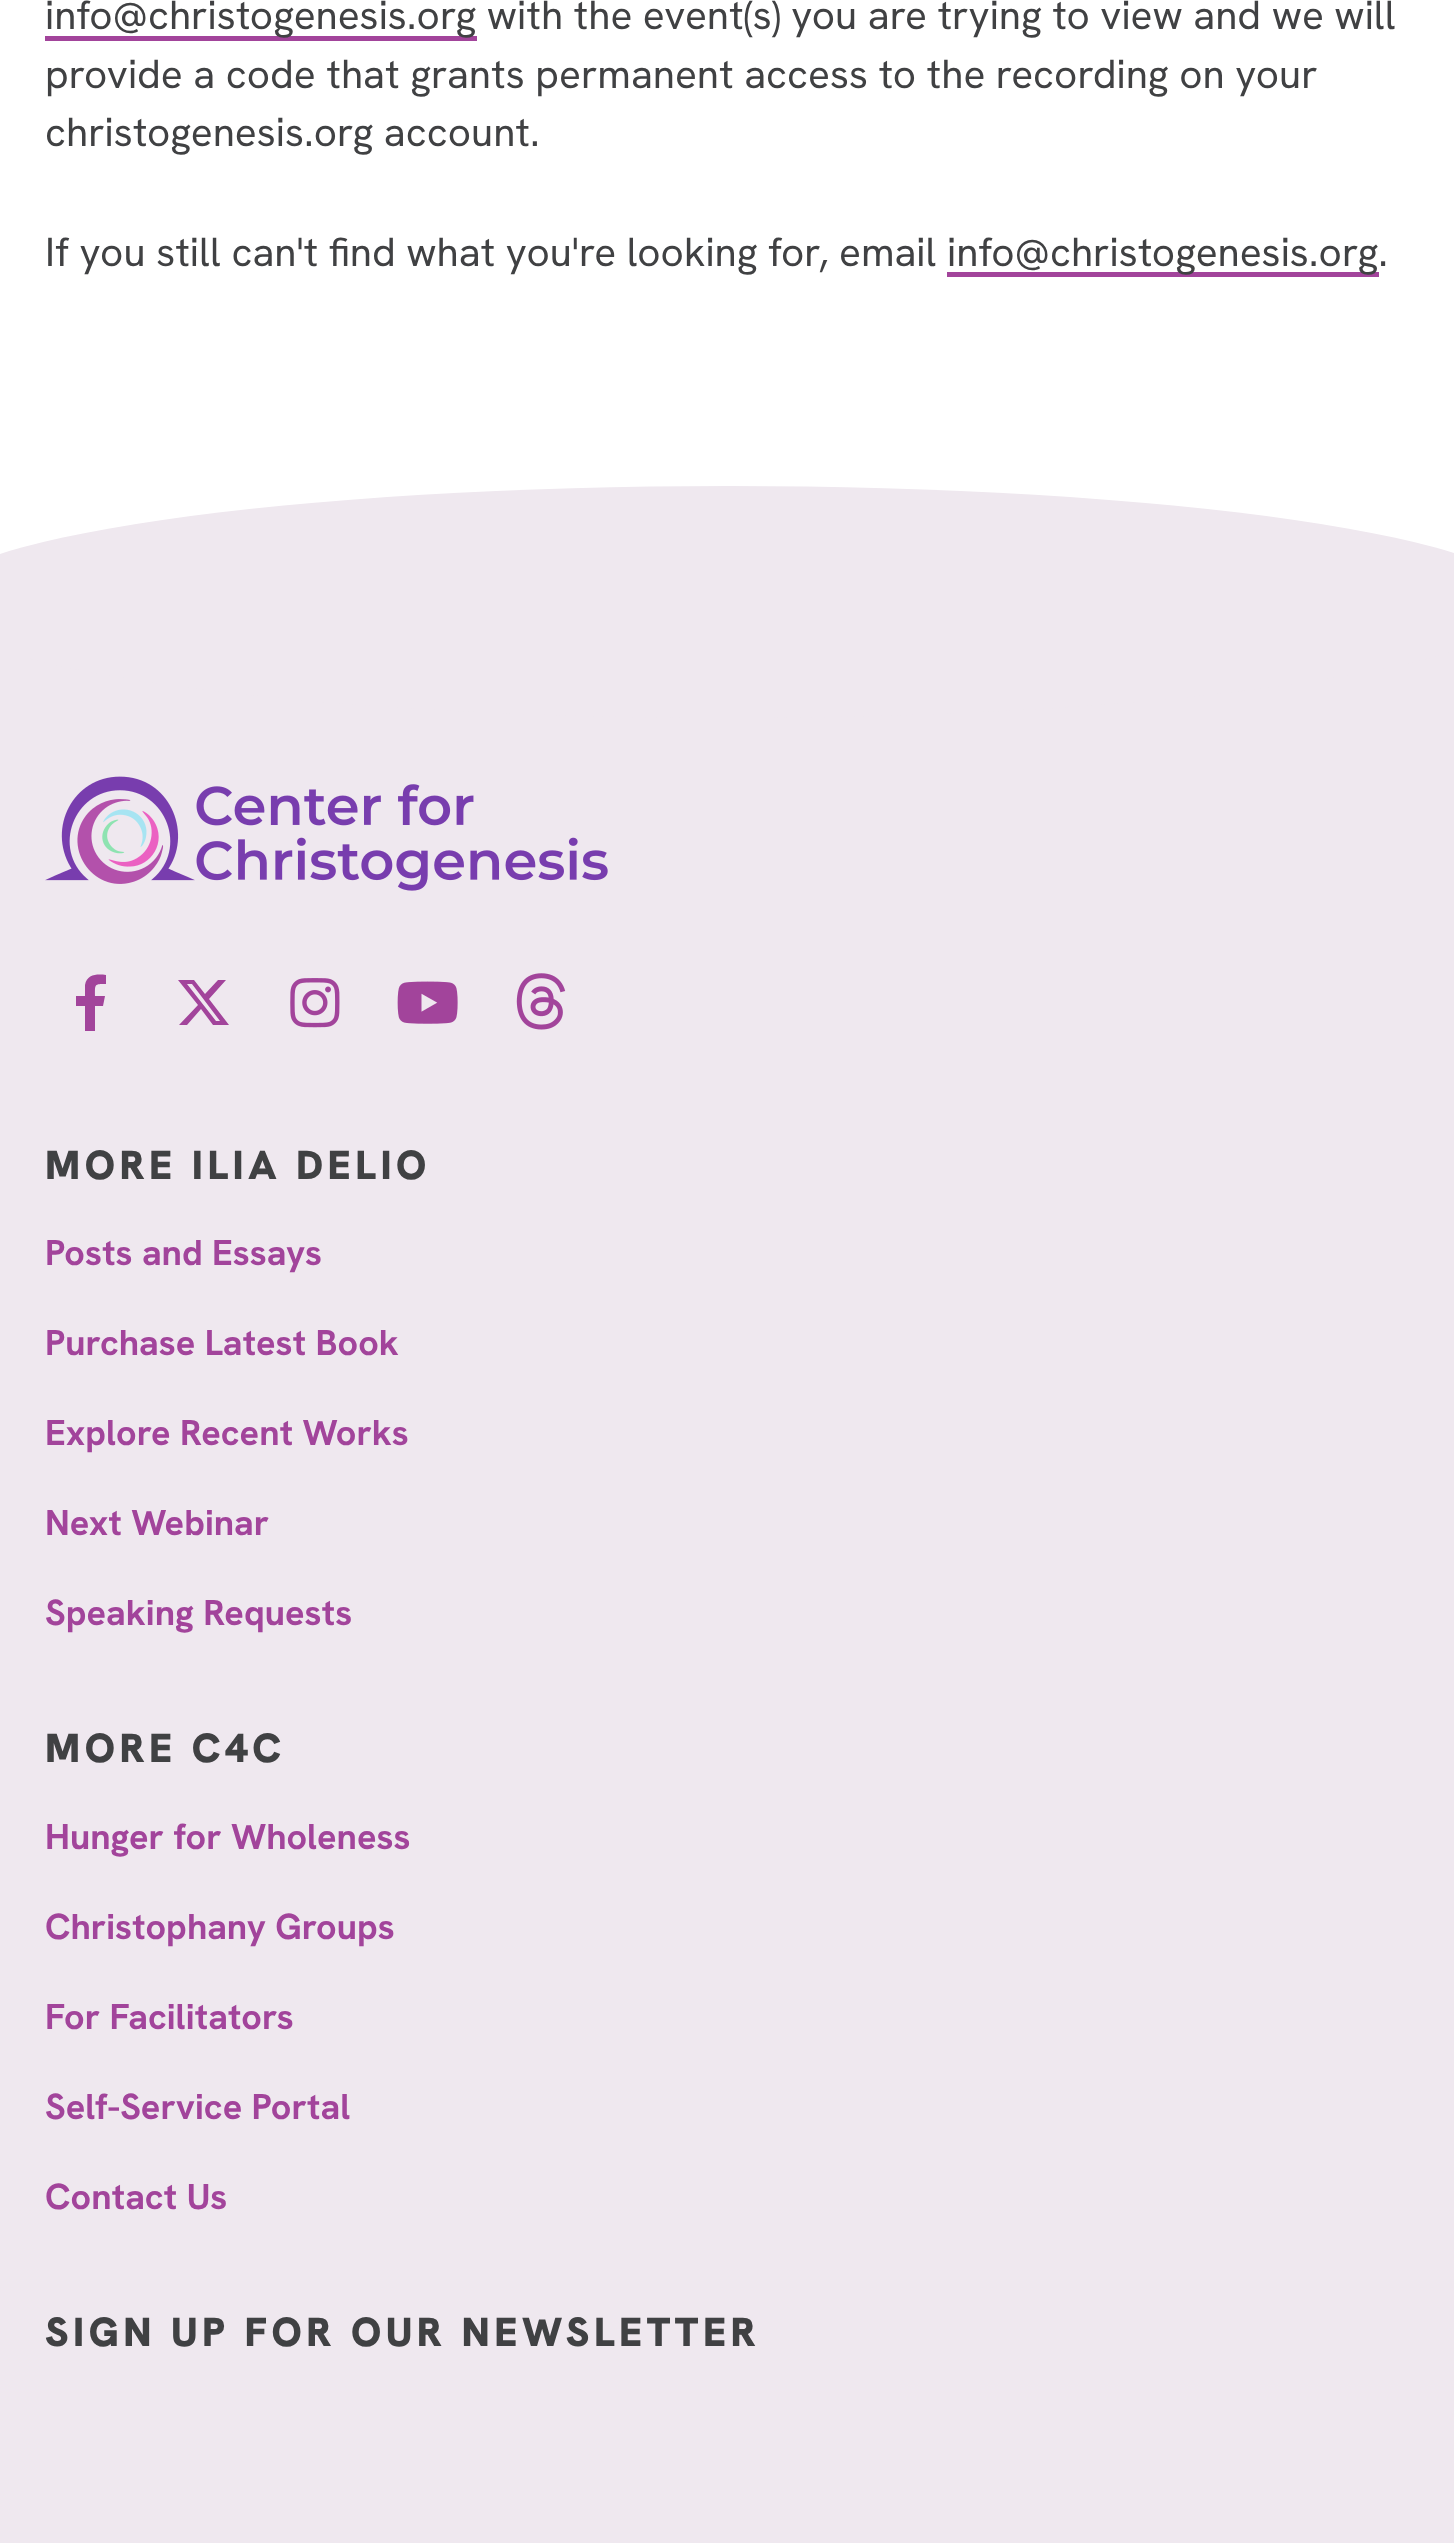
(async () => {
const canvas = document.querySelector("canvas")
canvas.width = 1454
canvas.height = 2543
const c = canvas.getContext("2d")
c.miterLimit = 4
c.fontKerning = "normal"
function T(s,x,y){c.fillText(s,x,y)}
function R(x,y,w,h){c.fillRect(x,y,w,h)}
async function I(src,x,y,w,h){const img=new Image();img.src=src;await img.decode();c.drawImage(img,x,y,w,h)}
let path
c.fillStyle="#fff"
R(0,0,1454,2543)
c.fillStyle="#a2449b"
R(45,36,432,5)
c.font="40.5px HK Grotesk"
c.fillStyle="#404143"
T("info@christogenesis.org with the event(s) you are trying to view and we will",45,29)
T("provide a code that grants permanent access to the recording on your",45,88)
T("christogenesis.org account.",45,146)
T("If you still can't find what you're looking for, email",45,266)
c.fillStyle="#a2449b"
R(947,272,432,5)
c.fillStyle="#404143"
T("info@christogenesis.org.",947,266)
c.fillStyle="#efe8ef"
R(0,650,1454,1893)
c.beginPath()
c.ellipse(728.5,602,800.5,116,0,0,7)
c.fill()
await I("1.png",45,776,563,115)
c.fillStyle="#a2449b"
path = new Path2D("M85 1031v-25h-9v-10h9v-11c2-11 12-11 21-10v9c-12 0-11 0-11 12h10l-2 10h-8v25z")
c.fill(path)
path = new Path2D("M218 980h8l-17 19l20 26h-16l-12-16l-14 16h-8l19-20l-20-25h16l11 14zm-2 41h4l-28-37h-5z")
c.fill(path)
await I("2.png",290,978,50,50)
await I("3.png",397,981,61,43)
await I("4.png",516,973,50,57)
c.letterSpacing="4.5px"
c.font="900 40.5px HK Grotesk"
c.fillStyle="#404143"
T("MORE ILIA DELIO",45,1179)
c.letterSpacing="0px"
c.font="bold 36px HK Grotesk"
c.fillStyle="#a2449b"
T("Posts and Essays",45,1265)
T("Purchase Latest Book",45,1355)
T("Explore Recent Works",45,1445)
T("Next Webinar",45,1535)
T("Speaking Requests",45,1625)
c.letterSpacing="4.5px"
c.font="900 40.5px HK Grotesk"
c.fillStyle="#404143"
T("MORE C4C",45,1762)
c.letterSpacing="0px"
c.font="bold 36px HK Grotesk"
c.fillStyle="#a2449b"
T("Hunger for Wholeness",45,1849)
T("Christophany Groups",45,1939)
T("For Facilitators",45,2029)
T("Self-Service Portal",45,2119)
T("Contact Us",45,2209)
c.letterSpacing="4.5px"
c.font="900 40.5px HK Grotesk"
c.fillStyle="#404143"
T("SIGN UP FOR OUR NEWSLETTER",45,2346)
})()
